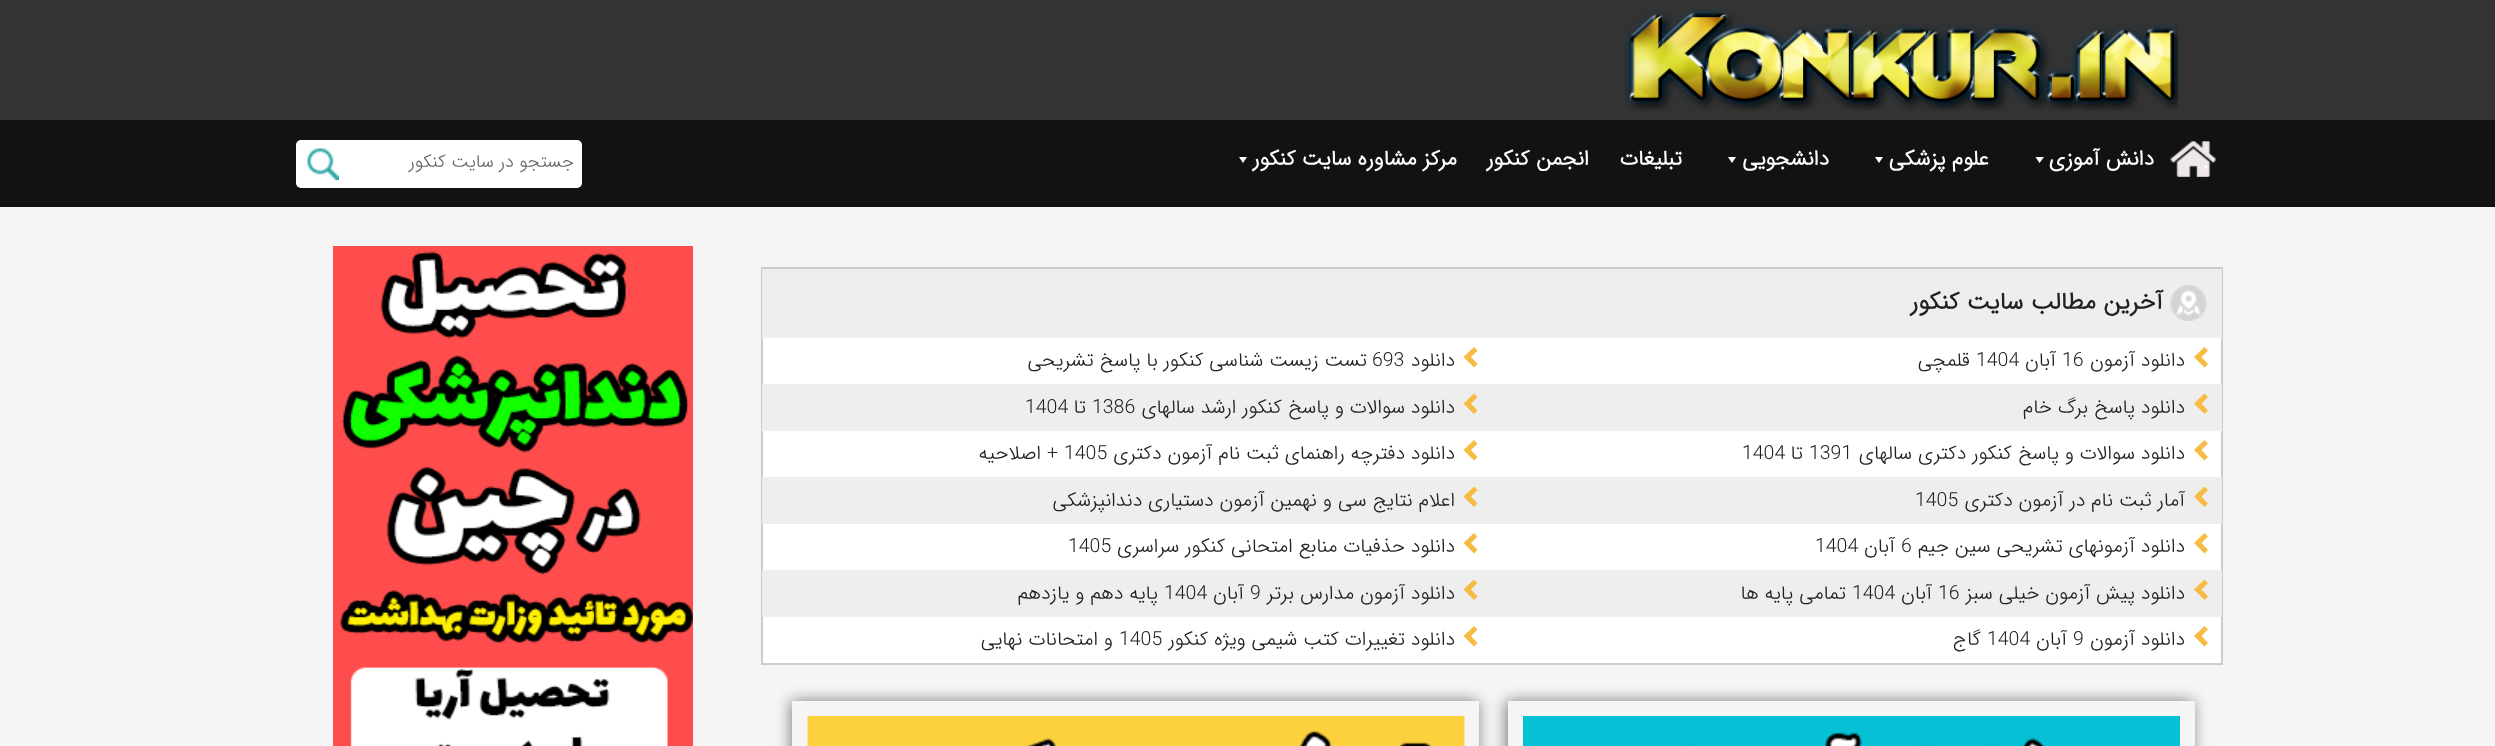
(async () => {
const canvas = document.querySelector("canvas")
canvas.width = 2495
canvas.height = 746
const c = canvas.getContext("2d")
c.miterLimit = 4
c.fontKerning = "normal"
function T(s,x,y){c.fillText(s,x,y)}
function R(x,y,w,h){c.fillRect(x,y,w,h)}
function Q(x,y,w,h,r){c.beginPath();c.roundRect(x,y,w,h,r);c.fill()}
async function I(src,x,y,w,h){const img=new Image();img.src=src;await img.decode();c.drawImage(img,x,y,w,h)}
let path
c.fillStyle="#333"
R(0,0,2495,746)
await I("1.png",1624,9,554,102)
c.fillStyle="#121212"
R(0,120,2495,87)
await I("2.png",2170,141,46,36)
c.font="bold 21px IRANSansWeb"
c.fillStyle="#fff"
T(".",2203,167)
c.direction="rtl"
T("دانش آموزی",2154,165)
path = new Path2D("M2044 157l-4.5 6l-4-6z")
c.fill(path)
T("علوم پزشکی",1989,165)
path = new Path2D("M1883 157l-4 6l-4-6z")
c.fill(path)
T("دانشجویی",1829,165)
path = new Path2D("M1736 157l-4 6l-4-6z")
c.fill(path)
T("تبلیغات",1682,165)
T("انجمن کنکور",1589,165)
T("مرکز مشاوره سایت کنکور",1457,165)
path = new Path2D("M1247 157l-4 6l-4-6z")
c.fill(path)
Q(296,140,286,48,5)
c.font="300 18px IRANSansWeb"
c.fillStyle="#666"
T("جستجو در سایت کنکور",574,167)
await I("3.png",307,148,32,32)
c.fillStyle="#f5f5f5"
R(0,207,2495,539)
c.fillStyle="#fff"
R(763,338,1458,325)
c.strokeStyle="#ccc"
c.lineWidth=2
c.strokeRect(762,268,1460,396)
c.fillStyle="#eee"
R(762,269,1460,69)
await I("4.png",2170,285,37,36)
c.font="bold 24px IRANSansWeb"
c.fillStyle="#212121"
T("آخرین مطالب سایت کنکور",2163,309)
c.fillStyle="#f7bb43"
path = new Path2D("M2208 350.5l-6.5 6.5l6.5 7l-3.5 3.5l-10.5-10.5l10.5-10z")
c.fill(path)
c.font="300 19.5px IRANSansWeb"
c.fillStyle="#212121"
T("دانلود آزمون",2185,366)
c.direction="ltr"
T("16",2062,366)
c.direction="rtl"
T("آبان",2056,366)
c.direction="ltr"
T("1404",1976,366)
c.direction="rtl"
T("قلمچی",1970,366)
c.fillStyle="#f7bb43"
path = new Path2D("M1477.5 350.5l-6.5 6.5l6.5 7l-3.5 3.5l-10.5-10.5l10.5-10z")
c.fill(path)
c.fillStyle="#212121"
T("دانلود",1455,366)
c.direction="ltr"
T("693",1372,366)
c.direction="rtl"
T("تست زیست شناسی کنکور با پاسخ تشریحی",1367,366)
c.fillStyle="#eee"
R(762,384,1460,47)
c.fillStyle="#f7bb43"
path = new Path2D("M2208 397l-6.5 6.5l6.5 7l-3.5 3.5l-10.5-10.5l10.5-10z")
c.fill(path)
c.fillStyle="#212121"
T("دانلود پاسخ برگ خام",2185,413)
c.fillStyle="#f7bb43"
path = new Path2D("M1477.5 397l-6.5 6.5l6.5 7l-3.5 3.5l-10.5-10.5l10.5-10z")
c.fill(path)
c.fillStyle="#212121"
T("دانلود سوالات و پاسخ کنکور ارشد سالهای",1455,413)
c.direction="ltr"
T("1386",1092,413)
c.direction="rtl"
T("تا",1086,413)
c.direction="ltr"
T("1404",1025,413)
c.fillStyle="#f7bb43"
path = new Path2D("M2208 443.5l-6.5 6.5l6.5 7l-3.5 3.5l-10.5-10.5l10.5-10z")
c.fill(path)
c.direction="rtl"
c.fillStyle="#212121"
T("دانلود سوالات و پاسخ کنکور دکتری سالهای",2185,459)
c.direction="ltr"
T("1391",1809,459)
c.direction="rtl"
T("تا",1803,459)
c.direction="ltr"
T("1404",1742,459)
c.fillStyle="#f7bb43"
path = new Path2D("M1477.5 443.5l-6.5 6.5l6.5 7l-3.5 3.5l-10.5-10.5l10.5-10z")
c.fill(path)
c.direction="rtl"
c.fillStyle="#212121"
T("دانلود دفترچه راهنمای ثبت نام آزمون دکتری",1455,459)
c.direction="ltr"
T("1405",1064,459)
c.direction="rtl"
T("+ اصلاحیه",1058,459)
c.fillStyle="#eee"
R(762,477,1460,47)
c.fillStyle="#f7bb43"
path = new Path2D("M2208 490l-6.5 6.5l6.5 7l-3.5 3.5l-10.5-10.5l10.5-10z")
c.fill(path)
c.fillStyle="#212121"
T("آمار ثبت نام در آزمون دکتری",2185,506)
c.direction="ltr"
T("1405",1915,506)
c.fillStyle="#f7bb43"
path = new Path2D("M1477.5 490l-6.5 6.5l6.5 7l-3.5 3.5l-10.5-10.5l10.5-10z")
c.fill(path)
c.direction="rtl"
c.fillStyle="#212121"
T("اعلام نتایج سی و نهمین آزمون دستیاری دندانپزشکی",1455,506)
c.fillStyle="#f7bb43"
path = new Path2D("M2208 536.5l-6.5 6.5l6.5 7l-3.5 3.5l-10.5-10.5l10.5-10z")
c.fill(path)
c.fillStyle="#212121"
T("دانلود آزمونهای تشریحی سین جیم",2185,552)
c.direction="ltr"
T("6",1901,552)
c.direction="rtl"
T("آبان",1895,552)
c.direction="ltr"
T("1404",1815,552)
c.fillStyle="#f7bb43"
path = new Path2D("M1477.5 536.5l-6.5 6.5l6.5 7l-3.5 3.5l-10.5-10.5l10.5-10z")
c.fill(path)
c.direction="rtl"
c.fillStyle="#212121"
T("دانلود حذفیات منابع امتحانی کنکور سراسری",1455,552)
c.direction="ltr"
T("1405",1068,552)
c.fillStyle="#eee"
R(762,570,1460,47)
c.fillStyle="#f7bb43"
path = new Path2D("M2208 583l-6.5 6.5l6.5 7l-3.5 3.5l-10.5-10.5l10.5-10z")
c.fill(path)
c.direction="rtl"
c.fillStyle="#212121"
T("دانلود پیش آزمون خیلی سبز",2185,599)
c.direction="ltr"
T("16",1938,599)
c.direction="rtl"
T("آبان",1932,599)
c.direction="ltr"
T("1404",1852,599)
c.direction="rtl"
T("تمامی پایه ها",1846,599)
c.fillStyle="#f7bb43"
path = new Path2D("M1477.5 583l-6.5 6.5l6.5 7l-3.5 3.5l-10.5-10.5l10.5-10z")
c.fill(path)
c.fillStyle="#212121"
T("دانلود آزمون مدارس برتر",1455,599)
c.direction="ltr"
T("9",1250,599)
c.direction="rtl"
T("آبان",1244,599)
c.direction="ltr"
T("1404",1164,599)
c.direction="rtl"
T("پایه دهم و یازدهم",1158,599)
c.fillStyle="#f7bb43"
path = new Path2D("M2208 629.5l-6.5 6.5l6.5 7l-3.5 3.5l-10.5-10.5l10.5-10z")
c.fill(path)
c.fillStyle="#212121"
T("دانلود آزمون",2185,645)
c.direction="ltr"
T("9",2073,645)
c.direction="rtl"
T("آبان",2067,645)
c.direction="ltr"
T("1404",1987,645)
c.direction="rtl"
T("گاج",1981,645)
c.fillStyle="#f7bb43"
path = new Path2D("M1477.5 629.5l-6.5 6.5l6.5 7l-3.5 3.5l-10.5-10.5l10.5-10z")
c.fill(path)
c.fillStyle="#212121"
T("دانلود تغییرات کتب شیمی ویژه کنکور",1455,645)
c.direction="ltr"
T("1405",1119,645)
c.direction="rtl"
T("و امتحانات نهایی",1113,645)
c.save()
path = new Path2D("M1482 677h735v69h-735zm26 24h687v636h-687z")
c.clip(path,"evenodd")
c.fillStyle="#00000080"
c.filter="blur(7.5px)"
c.beginPath()
c.rect(1506,701,687,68)
c.fill()
c.filter="none"
c.restore()
await I("5.png",1523,716,657,30)
c.save()
path = new Path2D("M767 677h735v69h-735zm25 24h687v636h-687z")
c.clip(path,"evenodd")
c.fillStyle="#00000080"
c.filter="blur(7.5px)"
c.beginPath()
c.rect(791,701,687,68)
c.fill()
c.filter="none"
c.restore()
await I("6.png",807,716,658,30)
await I("7.png",333,246,360,500)
})()
